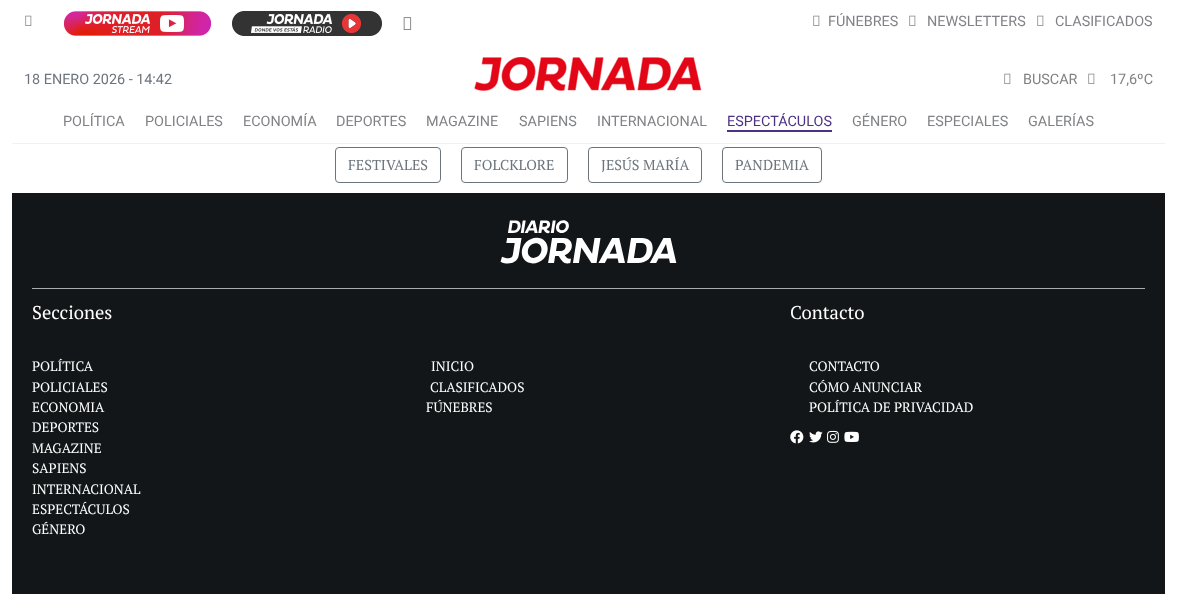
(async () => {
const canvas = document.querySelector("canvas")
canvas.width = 1177
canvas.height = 594
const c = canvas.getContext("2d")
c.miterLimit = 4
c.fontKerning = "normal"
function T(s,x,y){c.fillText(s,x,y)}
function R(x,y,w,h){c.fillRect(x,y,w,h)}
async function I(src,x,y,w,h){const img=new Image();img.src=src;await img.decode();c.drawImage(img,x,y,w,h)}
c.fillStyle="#fff"
R(0,0,1177,594)
await I("1.png",25,15,7,11)
await I("2.png",64,11,147,25)
await I("3.png",232,11,150,25)
await I("4.png",403,17,9,13)
await I("1.png",813,15,7,11)
c.font="14.4px Roboto"
c.fillStyle="#808285"
T("FÚNEBRES",828,26)
await I("1.png",909,15,7,11)
T("NEWSLETTERS",927,26)
await I("1.png",1037,15,7,11)
T("CLASIFICADOS",1055,26)
c.fillStyle="#6c757d"
T("18 ENERO 2026 - 14:42",24,84)
await I("5.png",474,57,228,34)
await I("1.png",1004,73,7,11)
c.fillStyle="#808285"
T("BUSCAR",1023,84)
await I("1.png",1088,73,7,11)
T("17,6ºC",1110,84)
c.fillStyle="#f1f1f1"
R(12,143,1153,1)
c.fillStyle="#808285"
T("POLÍTICA",63,126)
T("POLICIALES",145,126)
T("ECONOMÍA",243,126)
T("DEPORTES",336,126)
T("MAGAZINE",426,126)
T("SAPIENS",519,126)
T("INTERNACIONAL",597,126)
c.fillStyle="#4d3283"
T("ESPECTÁCULOS",727,126)
R(727,130,105,2)
c.fillStyle="#808285"
T("GÉNERO",852,126)
T("ESPECIALES",927,126)
T("GALERÍAS",1028,126)
c.beginPath()
c.roundRect(335.5,147.5,105,35,3.5)
c.strokeStyle="#6c757d"
c.stroke()
c.font="14.4px PT Serif"
c.fillStyle="#6c757d"
T("FESTIVALES",348,170)
c.beginPath()
c.roundRect(461.5,147.5,106,35,3.5)
c.stroke()
T("FOLCKLORE",474,170)
c.beginPath()
c.roundRect(588.5,147.5,113,35,3.5)
c.stroke()
T("JESÚS MARÍA",601,170)
c.beginPath()
c.roundRect(722.5,147.5,99,35,3.5)
c.stroke()
T("PANDEMIA",735,170)
c.fillStyle="#121618"
R(12,193,1153,401)
await I("6.png",500,220,177,44)
c.fillStyle="#abacad"
R(32,288,1113,1)
c.font="18.5px PT Serif"
c.fillStyle="#fff"
T("Secciones",32,319)
c.font="13.6px PT Serif"
T("POLÍTICA",32,371)
T("POLICIALES",32,392)
T("ECONOMIA",32,412)
T("DEPORTES",32,432)
T("MAGAZINE",32,453)
T("SAPIENS",32,473)
T("INTERNACIONAL",32,494)
T("ESPECTÁCULOS",32,514)
T("GÉNERO",32,534)
T("INICIO",431,371)
T("CLASIFICADOS",430,392)
T("FÚNEBRES",426,412)
c.font="18.5px PT Serif"
T("Contacto",790,319)
c.font="13.6px PT Serif"
T("CONTACTO",809,371)
T("CÓMO ANUNCIAR",809,392)
T("POLÍTICA DE PRIVACIDAD",809,412)
await I("7.png",790,430,14,14)
await I("8.png",809,431,14,12)
await I("9.png",827,430,12,13)
await I("10.png",844,431,15,11)
})()
